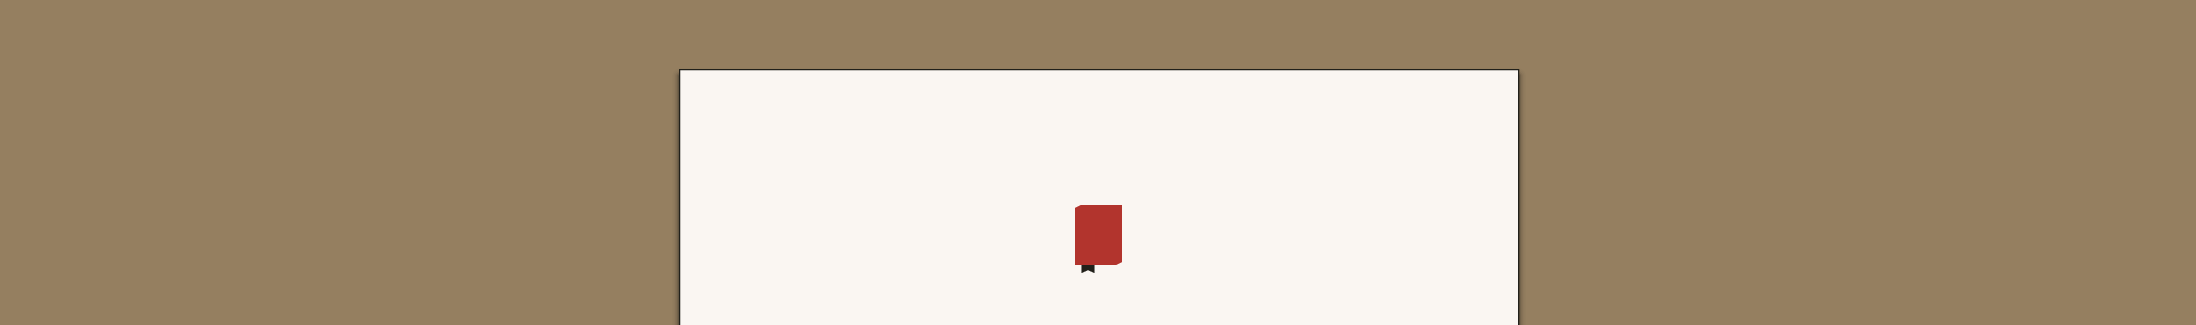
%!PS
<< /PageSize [2196 325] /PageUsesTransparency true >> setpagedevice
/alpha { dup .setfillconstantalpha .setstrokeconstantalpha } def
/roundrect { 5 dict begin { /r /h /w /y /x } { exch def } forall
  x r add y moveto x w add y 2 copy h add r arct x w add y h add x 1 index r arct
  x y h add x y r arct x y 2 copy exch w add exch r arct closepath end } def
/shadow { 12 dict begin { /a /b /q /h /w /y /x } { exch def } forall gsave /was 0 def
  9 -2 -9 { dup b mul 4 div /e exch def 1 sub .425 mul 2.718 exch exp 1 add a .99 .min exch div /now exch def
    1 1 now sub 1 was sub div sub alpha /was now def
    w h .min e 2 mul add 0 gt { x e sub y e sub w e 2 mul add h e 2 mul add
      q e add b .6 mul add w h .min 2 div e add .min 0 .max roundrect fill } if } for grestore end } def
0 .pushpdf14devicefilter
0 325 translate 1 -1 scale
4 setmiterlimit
0.584 0.498 0.376 setrgbcolor
0 0 2196 325 rectfill
0.129 0.125 0.102 setrgbcolor
679 75 840 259 0 3 1 shadow
0.98 0.965 0.949 setrgbcolor
newpath 679.5 69.5 moveto 1518.5 69.5 lineto 1518.5 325.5 lineto 679.5 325.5 lineto closepath gsave fill grestore
0.129 0.125 0.102 setrgbcolor
stroke
newpath 1081.5 260 moveto 1081.5 273 lineto 1088 270 lineto 1094.5 273 lineto 1094.5 260 lineto closepath fill
0.698 0.204 0.176 setrgbcolor
newpath 1075 208 moveto 1081 205 lineto 1122 205 lineto 1122 262 lineto 1116 265 lineto 1075 265 lineto closepath fill
.poppdf14devicefilter showpage
